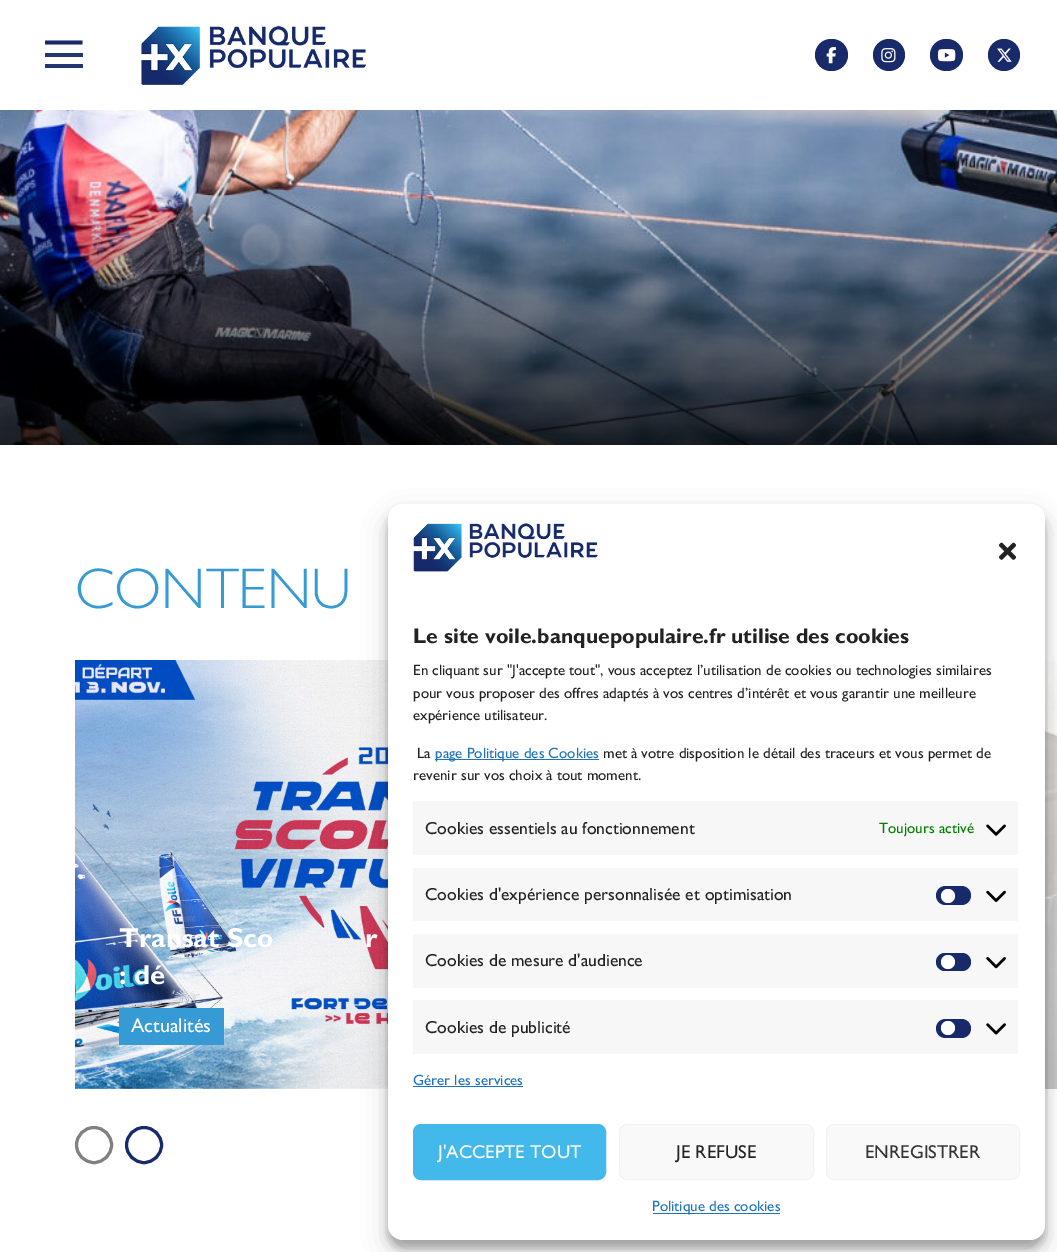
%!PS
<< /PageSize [1057 1252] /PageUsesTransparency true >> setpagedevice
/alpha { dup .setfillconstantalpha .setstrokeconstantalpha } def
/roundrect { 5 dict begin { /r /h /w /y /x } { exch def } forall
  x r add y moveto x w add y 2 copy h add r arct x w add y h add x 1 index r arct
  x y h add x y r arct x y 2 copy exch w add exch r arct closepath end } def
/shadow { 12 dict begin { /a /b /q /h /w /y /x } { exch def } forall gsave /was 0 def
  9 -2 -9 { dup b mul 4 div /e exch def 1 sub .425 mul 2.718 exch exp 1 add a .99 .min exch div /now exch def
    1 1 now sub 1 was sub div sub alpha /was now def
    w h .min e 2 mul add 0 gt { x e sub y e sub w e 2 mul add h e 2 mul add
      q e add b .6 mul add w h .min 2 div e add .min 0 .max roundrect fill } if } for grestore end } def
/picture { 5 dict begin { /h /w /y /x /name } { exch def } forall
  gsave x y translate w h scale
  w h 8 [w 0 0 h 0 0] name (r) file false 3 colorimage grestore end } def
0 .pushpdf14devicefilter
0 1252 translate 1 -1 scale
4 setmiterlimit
1 setgray
0 0 1057 1252 rectfill
0.098 0.165 0.42 setrgbcolor
3.8 setlinewidth
newpath 82.5 42.5 moveto 45 42.5 lineto stroke
0.145 0.208 0.447 setrgbcolor
45 53 38 4 rectfill
45 64 38 4 rectfill
(img1.rgb) 141 25 226 60 picture
0.098 0.165 0.42 setrgbcolor
815 39 33 32 16 roundrect fill
(img2.rgb) 826 47 10 17 picture
newpath 889 55 16 0 360 arc closepath fill
(img3.rgb) 881 48 15 15 picture
930 39 33 32 16 roundrect fill
(img4.rgb) 937 49 19 13 picture
newpath 1004 55 16 0 360 arc closepath fill
(img5.rgb) 997 48 15 14 picture
(img6.rgb) 0 110 1057 335 picture
/GillSans-Light [57.5 0 0 -57.5 0 0] selectfont
0.212 0.604 0.831 setrgbcolor
75 608 moveto (CONTENU) show
(img7.rgb) 75 660 313 429 picture
/GillSans-Bold [27.5 0 0 -27.5 0 0] selectfont
1 setgray
119 947 moveto (Transat Sco) show
365 947 moveto (r) show
119 984 moveto (: dé) show
0.212 0.604 0.831 setrgbcolor
119 1008 105 37 rectfill
/GillSans-Regular [20 0 0 -20 0 0] selectfont
1 setgray
131 1032 moveto (Actualités) show
(img8.rgb) 1045 661 12 428 picture
0.502 setgray
3 setlinewidth
newpath 94 1145 17.5 0 360 arc closepath stroke
0.098 0.165 0.42 setrgbcolor
newpath 144 1145 17.5 0 360 arc closepath stroke
0 setgray
388 511 657 737 15 4 0.23 shadow
388 516 657 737 15 12.5 0.19 shadow
1 setgray
388 504 657 736 15 roundrect fill
(img9.rgb) 413 523 185 49 picture
(img10.rgb) 998 542 19 18 picture
/GillSans-Bold [21.25 0 0 -21.25 0 0] selectfont
0.133 setgray
413 643 moveto (Le site voile.banquepopulaire.fr utilise des cookies) show
/GillSans-Regular [15 0 0 -15 0 0] selectfont
413 675 moveto (En cliquant sur "J'accepte tout", vous acceptez l’utilisation de cookies ou technologies similaires) show
413 698 moveto (pour vous proposer des offres adaptés à vos centres d’intérêt et vous garantir une meilleure) show
413 720 moveto (expérience utilisateur.) show
417 758 moveto (La) show
0.118 0.451 0.745 setrgbcolor
435 759 164 1 rectfill
435 758 moveto (page Politique des Cookies) show
0.133 setgray
603 758 moveto (met à votre disposition le détail des traceurs et vous permet de) show
413 780 moveto (revenir sur vos choix à tout moment.) show
0.969 setgray
413 801 605 54 rectfill
/GillSans-Regular [17.5 0 0 -17.5 0 0] selectfont
0.133 setgray
425 834 moveto (Cookies essentiels au fonctionnement) show
/GillSans-Regular [15 0 0 -15 0 0] selectfont
0 0.502 0 setrgbcolor
879 833 moveto (Toujours activé) show
(img11.rgb) 986 824 20 12 picture
0.969 setgray
413 868 605 53 rectfill
/GillSans-Regular [17.5 0 0 -17.5 0 0] selectfont
0.133 setgray
425 900 moveto (Cookies d'expérience personnalisée et optimisation) show
0.098 0.165 0.42 setrgbcolor
936 886 35 19 9.5 roundrect fill
1 setgray
newpath 948 896 7 0 360 arc closepath fill
(img12.rgb) 986 890 20 12 picture
0.969 setgray
413 934 605 54 rectfill
0.133 setgray
425 966 moveto (Cookies de mesure d'audience) show
0.098 0.165 0.42 setrgbcolor
936 953 35 18 9 roundrect fill
1 setgray
newpath 948 962 7 0 360 arc closepath fill
(img13.rgb) 986 957 20 12 picture
0.969 setgray
413 1000 605 54 rectfill
0.133 setgray
425 1033 moveto (Cookies de publicité) show
0.098 0.165 0.42 setrgbcolor
936 1019 35 19 9.5 roundrect fill
1 setgray
newpath 948 1028 7 0 360 arc closepath fill
(img14.rgb) 986 1023 20 12 picture
/GillSans-Regular [15 0 0 -15 0 0] selectfont
0.118 0.451 0.745 setrgbcolor
413 1085 moveto (Gérer les services) show
413 1086 110 1 rectfill
0.259 0.722 0.922 setrgbcolor
413.5 1124.5 192 55 7.5 roundrect gsave fill grestore
1 setlinewidth
stroke
/GillSans-Regular [18.75 0 0 -18.75 0 0] selectfont
1 setgray
438 1158 moveto (J'ACCEPTE TOUT) show
0.976 setgray
619.5 1124.5 194 55 7.5 roundrect gsave fill grestore
0.949 setgray
stroke
0.133 setgray
676 1158 moveto (JE REFUSE) show
0.976 setgray
826.5 1124.5 193 55 7.5 roundrect gsave fill grestore
0.949 setgray
stroke
0.2 setgray
865 1158 moveto (ENREGISTRER) show
0.118 0.451 0.745 setrgbcolor
653 1213 127 1 rectfill
/GillSans-Regular [15 0 0 -15 0 0] selectfont
652 1211 moveto (Politique des cookies) show
.poppdf14devicefilter showpage
